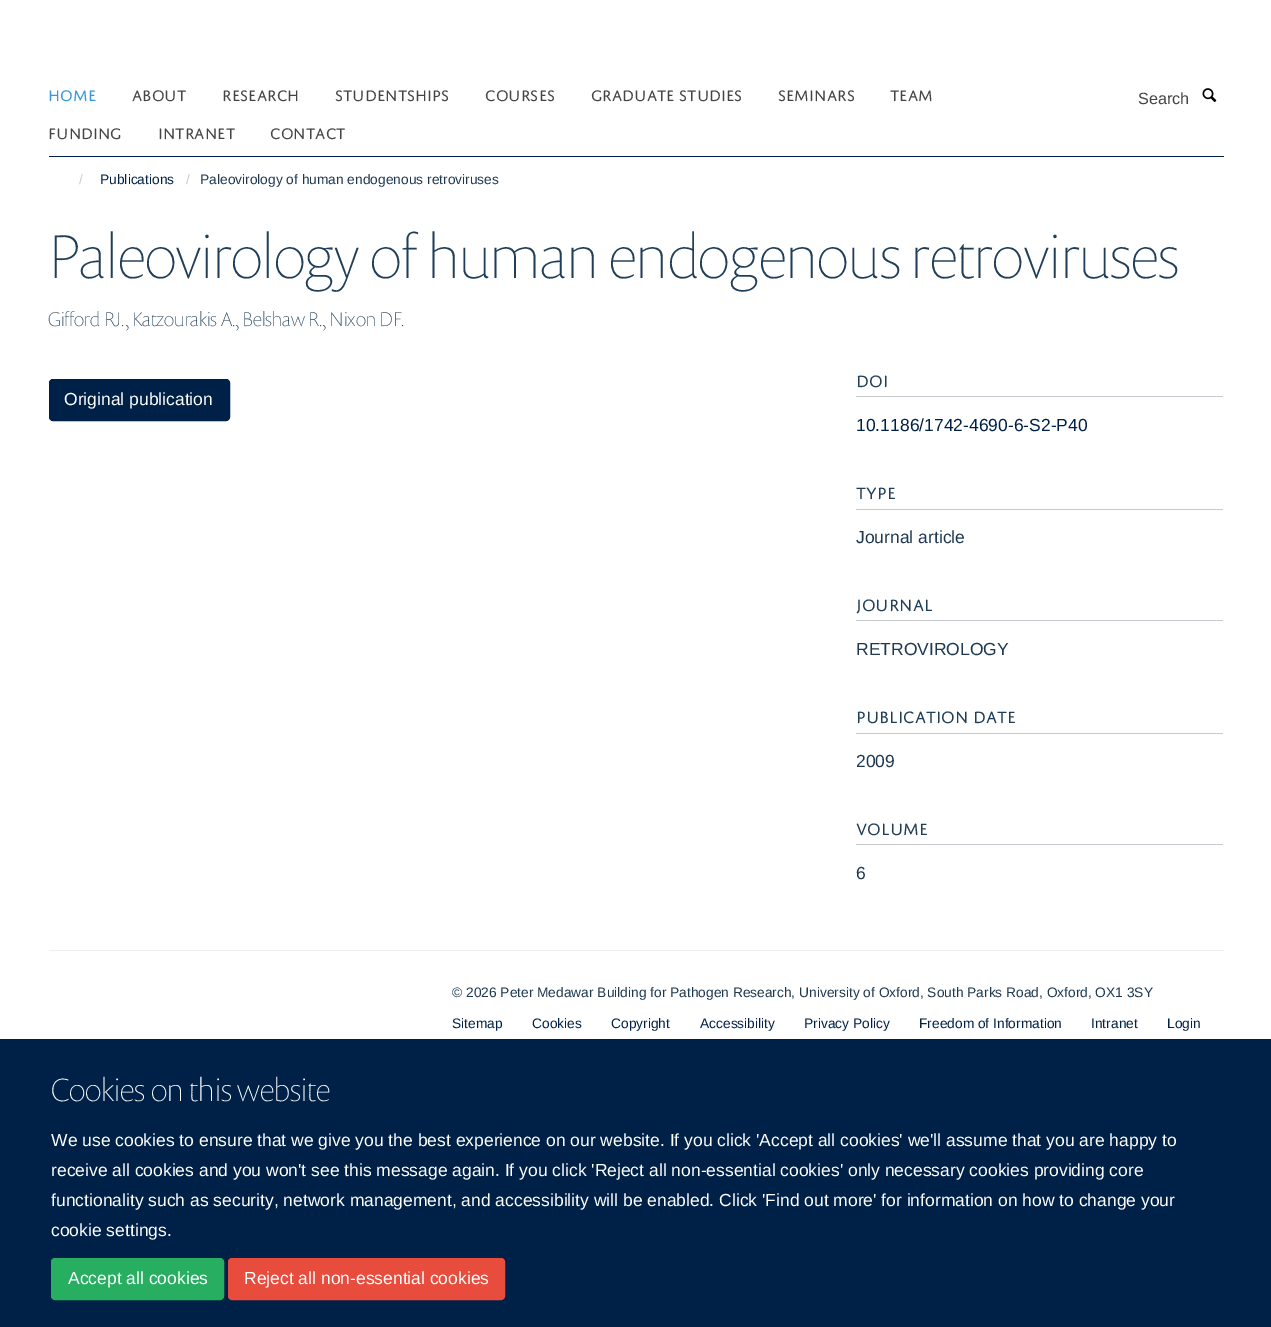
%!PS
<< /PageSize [1271 1327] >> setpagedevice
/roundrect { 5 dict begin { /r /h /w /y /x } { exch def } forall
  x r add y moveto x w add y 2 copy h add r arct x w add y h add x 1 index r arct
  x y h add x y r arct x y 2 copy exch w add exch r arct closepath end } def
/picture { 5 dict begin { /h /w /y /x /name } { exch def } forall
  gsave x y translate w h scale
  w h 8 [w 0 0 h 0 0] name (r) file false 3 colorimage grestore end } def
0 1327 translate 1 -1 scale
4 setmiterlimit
1 setgray
0 0 1271 1327 rectfill
0 0.129 0.278 setrgbcolor
49 156 1175 1 rectfill
/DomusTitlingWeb-Regular [16.25 0 0 -16.25 0 0] selectfont
0.204 0.596 0.859 setrgbcolor
48 101 moveto (HOME) show
0.267 setgray
132 101 moveto (ABOUT) show
222 101 moveto (RESEARCH) show
335 101 moveto (STUDENTSHIPS) show
485 101 moveto (COURSES) show
591 101 moveto (GRADUATE STUDIES) show
778 101 moveto (SEMINARS) show
890 101 moveto (TEAM) show
48 139 moveto (FUNDING) show
158 139 moveto (INTRANET) show
270 139 moveto (CONTACT) show
/LiberationSans-Regular [16.25 0 0 -16.25 0 0] selectfont
1138 104 moveto (Search) show
(img1.rgb) 1202 88 15 14 picture
/LiberationSans-Regular [13.75 0 0 -13.75 0 0] selectfont
0.8 setgray
79 184 moveto (/) show
0 0.129 0.278 setrgbcolor
100 184 moveto (Publications) show
0.8 setgray
186 184 moveto (/) show
0.114 0.22 0.314 setrgbcolor
200 184 moveto (Paleovirology of human endogenous retroviruses) show
/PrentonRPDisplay-Thin [62.5 0 0 -62.5 0 0] selectfont
0.125 0.243 0.345 setrgbcolor
48 278 moveto (Paleovirology of human endogenous retroviruses) show
/PrentonRPDisplay-Thin [20 0 0 -20 0 0] selectfont
48 326 moveto (Gifford RJ., Katzourakis A., Belshaw R., Nixon DF.) show
0 0.129 0.278 setrgbcolor
49.5 379.5 180 41 3.5 roundrect gsave fill grestore
stroke
/LiberationSans-Regular [17.5 0 0 -17.5 0 0] selectfont
1 setgray
64 405 moveto (Original publication) show
0.776 0.792 0.812 setrgbcolor
856 396 367 1 rectfill
/DomusTitlingWeb-Regular [17.5 0 0 -17.5 0 0] selectfont
0.125 0.243 0.345 setrgbcolor
856 387 moveto (DOI) show
/LiberationSans-Regular [17.5 0 0 -17.5 0 0] selectfont
0 0.129 0.278 setrgbcolor
856 431 moveto (10.1186/1742-4690-6-S2-P40) show
0.776 0.792 0.812 setrgbcolor
856 509 367 1 rectfill
/DomusTitlingWeb-Regular [17.5 0 0 -17.5 0 0] selectfont
0.125 0.243 0.345 setrgbcolor
856 499 moveto (TYPE) show
/LiberationSans-Regular [17.5 0 0 -17.5 0 0] selectfont
0.114 0.22 0.314 setrgbcolor
856 543 moveto (Journal article) show
0.776 0.792 0.812 setrgbcolor
856 620 367 1 rectfill
/DomusTitlingWeb-Regular [17.5 0 0 -17.5 0 0] selectfont
0.125 0.243 0.345 setrgbcolor
856 611 moveto (JOURNAL) show
/LiberationSans-Regular [17.5 0 0 -17.5 0 0] selectfont
0.114 0.22 0.314 setrgbcolor
856 655 moveto (RETROVIROLOGY) show
0.776 0.792 0.812 setrgbcolor
856 733 367 1 rectfill
/DomusTitlingWeb-Regular [17.5 0 0 -17.5 0 0] selectfont
0.125 0.243 0.345 setrgbcolor
856 723 moveto (PUBLICATION DATE) show
/LiberationSans-Regular [17.5 0 0 -17.5 0 0] selectfont
0.114 0.22 0.314 setrgbcolor
856 767 moveto (2009) show
0.776 0.792 0.812 setrgbcolor
856 844 367 1 rectfill
/DomusTitlingWeb-Regular [17.5 0 0 -17.5 0 0] selectfont
0.125 0.243 0.345 setrgbcolor
856 835 moveto (VOLUME) show
/LiberationSans-Regular [17.5 0 0 -17.5 0 0] selectfont
0.114 0.22 0.314 setrgbcolor
856 879 moveto (6) show
0.933 setgray
49 950 1175 1 rectfill
/LiberationSans-Regular [13.75 0 0 -13.75 0 0] selectfont
0.114 0.22 0.314 setrgbcolor
452 997 moveto (© 2026 Peter Medawar Building for Pathogen Research, University of Oxford, South Parks Road, Oxford, OX1 3SY) show
0 0.129 0.278 setrgbcolor
452 1028 moveto (Sitemap) show
532 1028 moveto (Cookies) show
611 1028 moveto (Copyright) show
700 1028 moveto (Accessibility) show
804 1028 moveto (Privacy Policy) show
919 1028 moveto (Freedom of Information) show
1091 1028 moveto (Intranet) show
1167 1028 moveto (Login) show
0 1039 1271 288 rectfill
/PrentonRPDisplay-Thin [32.5 0 0 -32.5 0 0] selectfont
1 setgray
51 1101 moveto (Cookies on this website) show
/LiberationSans-Regular [17.5 0 0 -17.5 0 0] selectfont
51 1146 moveto (We use cookies to ensure that we give you the best experience on our website. If you click 'Accept all cookies' we'll assume that you are happy to) show
51 1176 moveto (receive all cookies and you won't see this message again. If you click 'Reject all non-essential cookies' only necessary cookies providing core) show
51 1206 moveto (functionality such as security, network management, and accessibility will be enabled. Click 'Find out more' for information on how to change your) show
51 1236 moveto (cookie settings.) show
0.153 0.682 0.376 setrgbcolor
51.5 1258.5 172 41 3.5 roundrect gsave fill grestore
stroke
1 setgray
68 1284 moveto (Accept all cookies) show
0.906 0.298 0.235 setrgbcolor
228.5 1258.5 276 41 3.5 roundrect gsave fill grestore
stroke
1 setgray
244 1284 moveto (Reject all non-essential cookies) show
showpage
